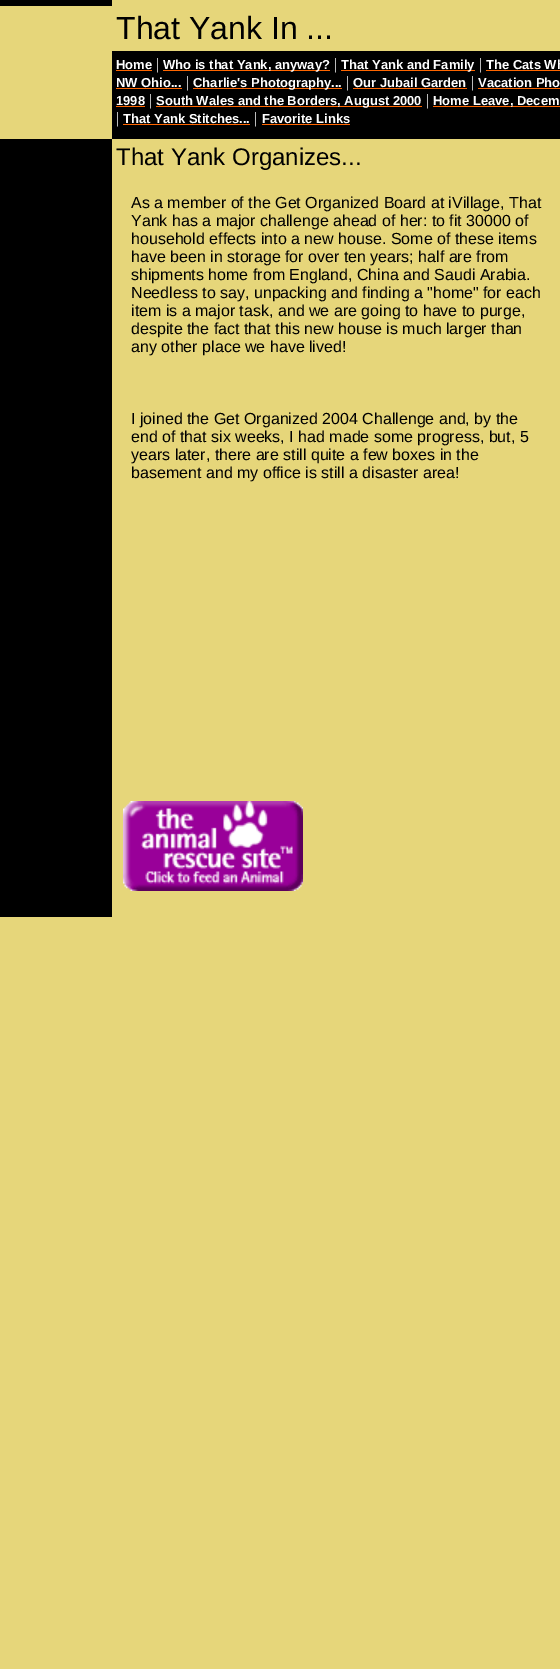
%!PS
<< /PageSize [560 1669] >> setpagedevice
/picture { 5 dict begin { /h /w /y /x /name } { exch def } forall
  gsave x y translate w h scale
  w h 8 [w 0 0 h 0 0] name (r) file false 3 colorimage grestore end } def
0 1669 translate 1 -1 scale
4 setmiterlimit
0.902 0.839 0.478 setrgbcolor
0 0 560 1669 rectfill
0 setgray
0 0 112 6 rectfill
/LiberationSans-Regular [32 0 0 -32 0 0] selectfont
116 39 moveto (That Yank In ...) show
112 51 448 88 rectfill
/LiberationSans-Bold [13 0 0 -13 0 0] selectfont
1 setgray
116 69 moveto (Home) show
1 0.4 0 setrgbcolor
116 70 36 1 rectfill
/LiberationSerif-Regular [16 0 0 -16 0 0] selectfont
1 setgray
156 69 moveto (|) show
1 0.4 0 setrgbcolor
163 70 167 1 rectfill
/LiberationSans-Bold [13 0 0 -13 0 0] selectfont
1 setgray
163 69 moveto (Who is that Yank, anyway?) show
/LiberationSerif-Regular [16 0 0 -16 0 0] selectfont
334 69 moveto (|) show
1 0.4 0 setrgbcolor
341 70 134 1 rectfill
/LiberationSans-Bold [13 0 0 -13 0 0] selectfont
1 setgray
341 69 moveto (That Yank and Family) show
/LiberationSerif-Regular [16 0 0 -16 0 0] selectfont
479 69 moveto (|) show
/LiberationSans-Bold [13 0 0 -13 0 0] selectfont
486 69 moveto (The Cats Wh) show
1 0.4 0 setrgbcolor
486 70 74 1 rectfill
1 setgray
116 87 moveto (NW Ohio...) show
1 0.4 0 setrgbcolor
116 88 66 1 rectfill
/LiberationSerif-Regular [16 0 0 -16 0 0] selectfont
1 setgray
186 87 moveto (|) show
1 0.4 0 setrgbcolor
193 88 149 1 rectfill
/LiberationSans-Bold [13 0 0 -13 0 0] selectfont
1 setgray
193 87 moveto (Charlie's Photography...) show
/LiberationSerif-Regular [16 0 0 -16 0 0] selectfont
346 87 moveto (|) show
/LiberationSans-Bold [13 0 0 -13 0 0] selectfont
353 87 moveto (Our Jubail Garden) show
1 0.4 0 setrgbcolor
353 88 114 1 rectfill
/LiberationSerif-Regular [16 0 0 -16 0 0] selectfont
1 setgray
471 87 moveto (|) show
/LiberationSans-Bold [13 0 0 -13 0 0] selectfont
478 87 moveto (Vacation Pho) show
1 0.4 0 setrgbcolor
478 88 82 1 rectfill
1 setgray
116 105 moveto (1998) show
1 0.4 0 setrgbcolor
116 106 29 1 rectfill
/LiberationSerif-Regular [16 0 0 -16 0 0] selectfont
1 setgray
149 105 moveto (|) show
1 0.4 0 setrgbcolor
156 106 266 1 rectfill
/LiberationSans-Bold [13 0 0 -13 0 0] selectfont
1 setgray
156 105 moveto (South Wales and the Borders, August 2000) show
/LiberationSerif-Regular [16 0 0 -16 0 0] selectfont
426 105 moveto (|) show
1 0.4 0 setrgbcolor
433 106 127 1 rectfill
/LiberationSans-Bold [13 0 0 -13 0 0] selectfont
1 setgray
433 105 moveto (Home Leave, Decem) show
/LiberationSerif-Regular [16 0 0 -16 0 0] selectfont
116 123 moveto (|) show
/LiberationSans-Bold [13 0 0 -13 0 0] selectfont
123 123 moveto (That Yank Stitches...) show
1 0.4 0 setrgbcolor
123 124 127 1 rectfill
/LiberationSerif-Regular [16 0 0 -16 0 0] selectfont
1 setgray
254 123 moveto (|) show
/LiberationSans-Bold [13 0 0 -13 0 0] selectfont
262 123 moveto (Favorite Links) show
1 0.4 0 setrgbcolor
262 124 88 1 rectfill
0 setgray
0 139 112 778 rectfill
/LiberationSans-Regular [24 0 0 -24 0 0] selectfont
116 165 moveto (That Yank Organizes...) show
/LiberationSans-Regular [16 0 0 -16 0 0] selectfont
131 208 moveto (As a member of the Get Organized Board at iVillage, That) show
131 226 moveto (Yank has a major challenge ahead of her: to fit 30000 of) show
131 244 moveto (household effects into a new house. Some of these items) show
131 262 moveto (have been in storage for over ten years; half are from) show
131 280 moveto (shipments home from England, China and Saudi Arabia.) show
131 298 moveto (Needless to say, unpacking and finding a "home" for each) show
131 316 moveto (item is a major task, and we are going to have to purge,) show
131 334 moveto (despite the fact that this new house is much larger than) show
131 352 moveto (any other place we have lived!) show
131 424 moveto (I joined the Get Organized 2004 Challenge and, by the) show
131 442 moveto (end of that six weeks, I had made some progress, but, 5) show
131 460 moveto (years later, there are still quite a few boxes in the) show
131 478 moveto (basement and my office is still a disaster area!) show
(img1.rgb) 123 801 180 90 picture
showpage
